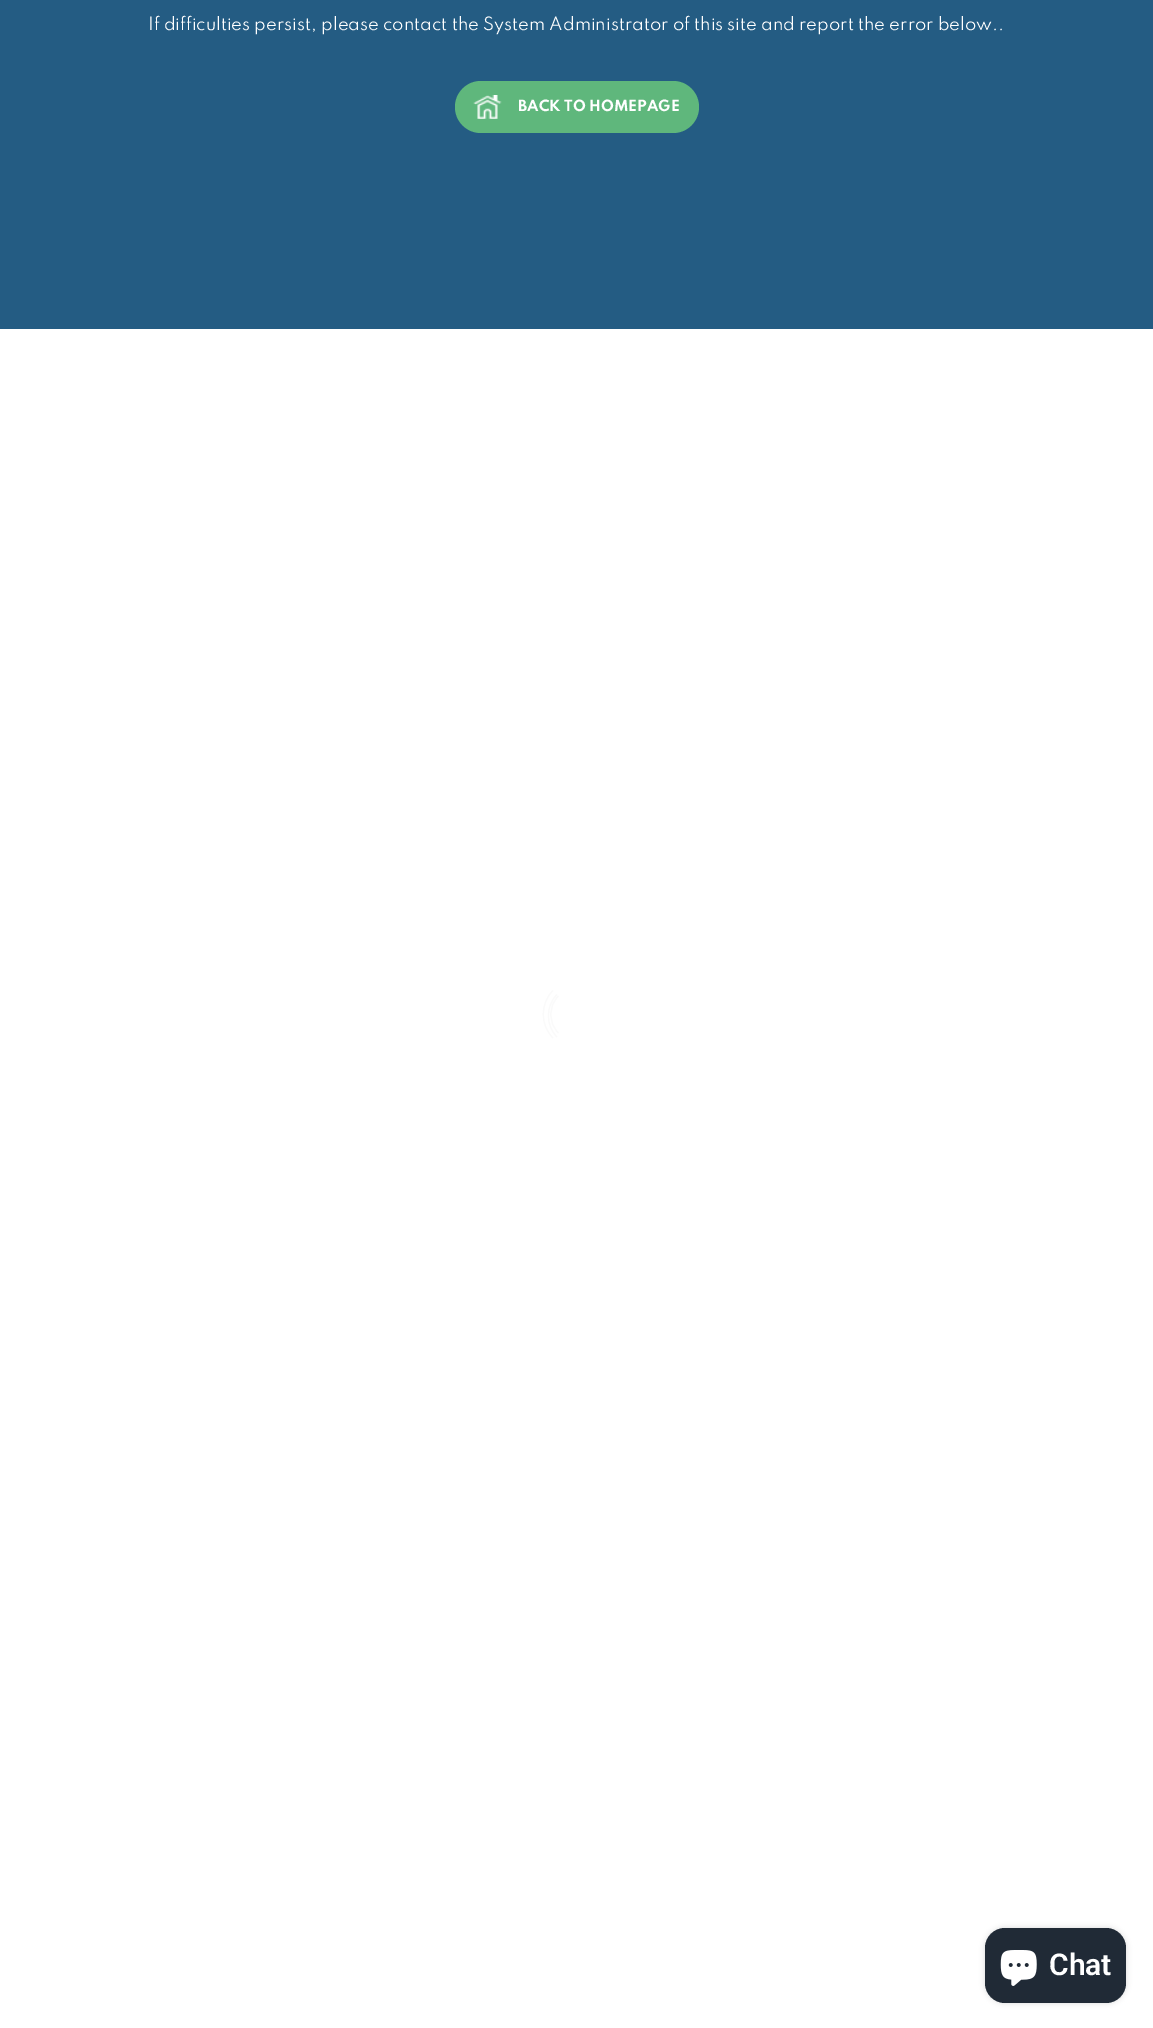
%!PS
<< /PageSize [1153 2028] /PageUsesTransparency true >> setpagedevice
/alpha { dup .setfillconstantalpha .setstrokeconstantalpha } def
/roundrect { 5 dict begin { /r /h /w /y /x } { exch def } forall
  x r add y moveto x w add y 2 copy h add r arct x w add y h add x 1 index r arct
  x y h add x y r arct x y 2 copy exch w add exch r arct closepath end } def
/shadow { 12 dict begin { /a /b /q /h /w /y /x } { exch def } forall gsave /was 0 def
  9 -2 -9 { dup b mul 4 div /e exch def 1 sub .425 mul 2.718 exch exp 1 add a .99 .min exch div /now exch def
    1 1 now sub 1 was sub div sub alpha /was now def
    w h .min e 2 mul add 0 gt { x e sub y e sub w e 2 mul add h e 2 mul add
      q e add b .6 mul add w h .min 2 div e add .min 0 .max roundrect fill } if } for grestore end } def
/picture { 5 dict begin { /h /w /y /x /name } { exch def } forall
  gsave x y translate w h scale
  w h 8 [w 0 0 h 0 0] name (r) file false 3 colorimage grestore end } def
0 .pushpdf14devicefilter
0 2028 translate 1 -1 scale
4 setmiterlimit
1 setgray
0 0 1153 2028 rectfill
0.141 0.361 0.514 setrgbcolor
0 0 1153 329 rectfill
/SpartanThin-Regular [16.25 0 0 -16.25 0 0] selectfont
1 setgray
148 30 moveto (If difficulties persist, please contact the System Administrator of this site and report the error below..) show
0.373 0.718 0.486 setrgbcolor
455 81 244 52 26 roundrect fill
(img1.rgb) 473 95 29 24 picture
/SpartanThin-Bold [13.75 0 0 -13.75 0 0] selectfont
1 setgray
518 111 moveto (BACK TO HOMEPAGE) show
0.98 setgray
1.2 setlinewidth
newpath 557 1037 moveto 545.5 1025.5 545.5 1006 557 994.5 curveto 558.5 1033 moveto 548 1023 548 1006 558.5 996 curveto 553 1038 moveto 540 1025 540 1003.5 553 990.5 curveto stroke
0 setgray
985 1928 141 75 20 3 0.15 shadow
0.125 0.165 0.212 setrgbcolor
985 1928 141 75 20 roundrect fill
(img2.rgb) 1000 1950 37 36 picture
/Roboto-SemiBold [30 0 0 -30 0 0] selectfont
1 setgray
1049 1975 moveto (Chat) show
.poppdf14devicefilter showpage
